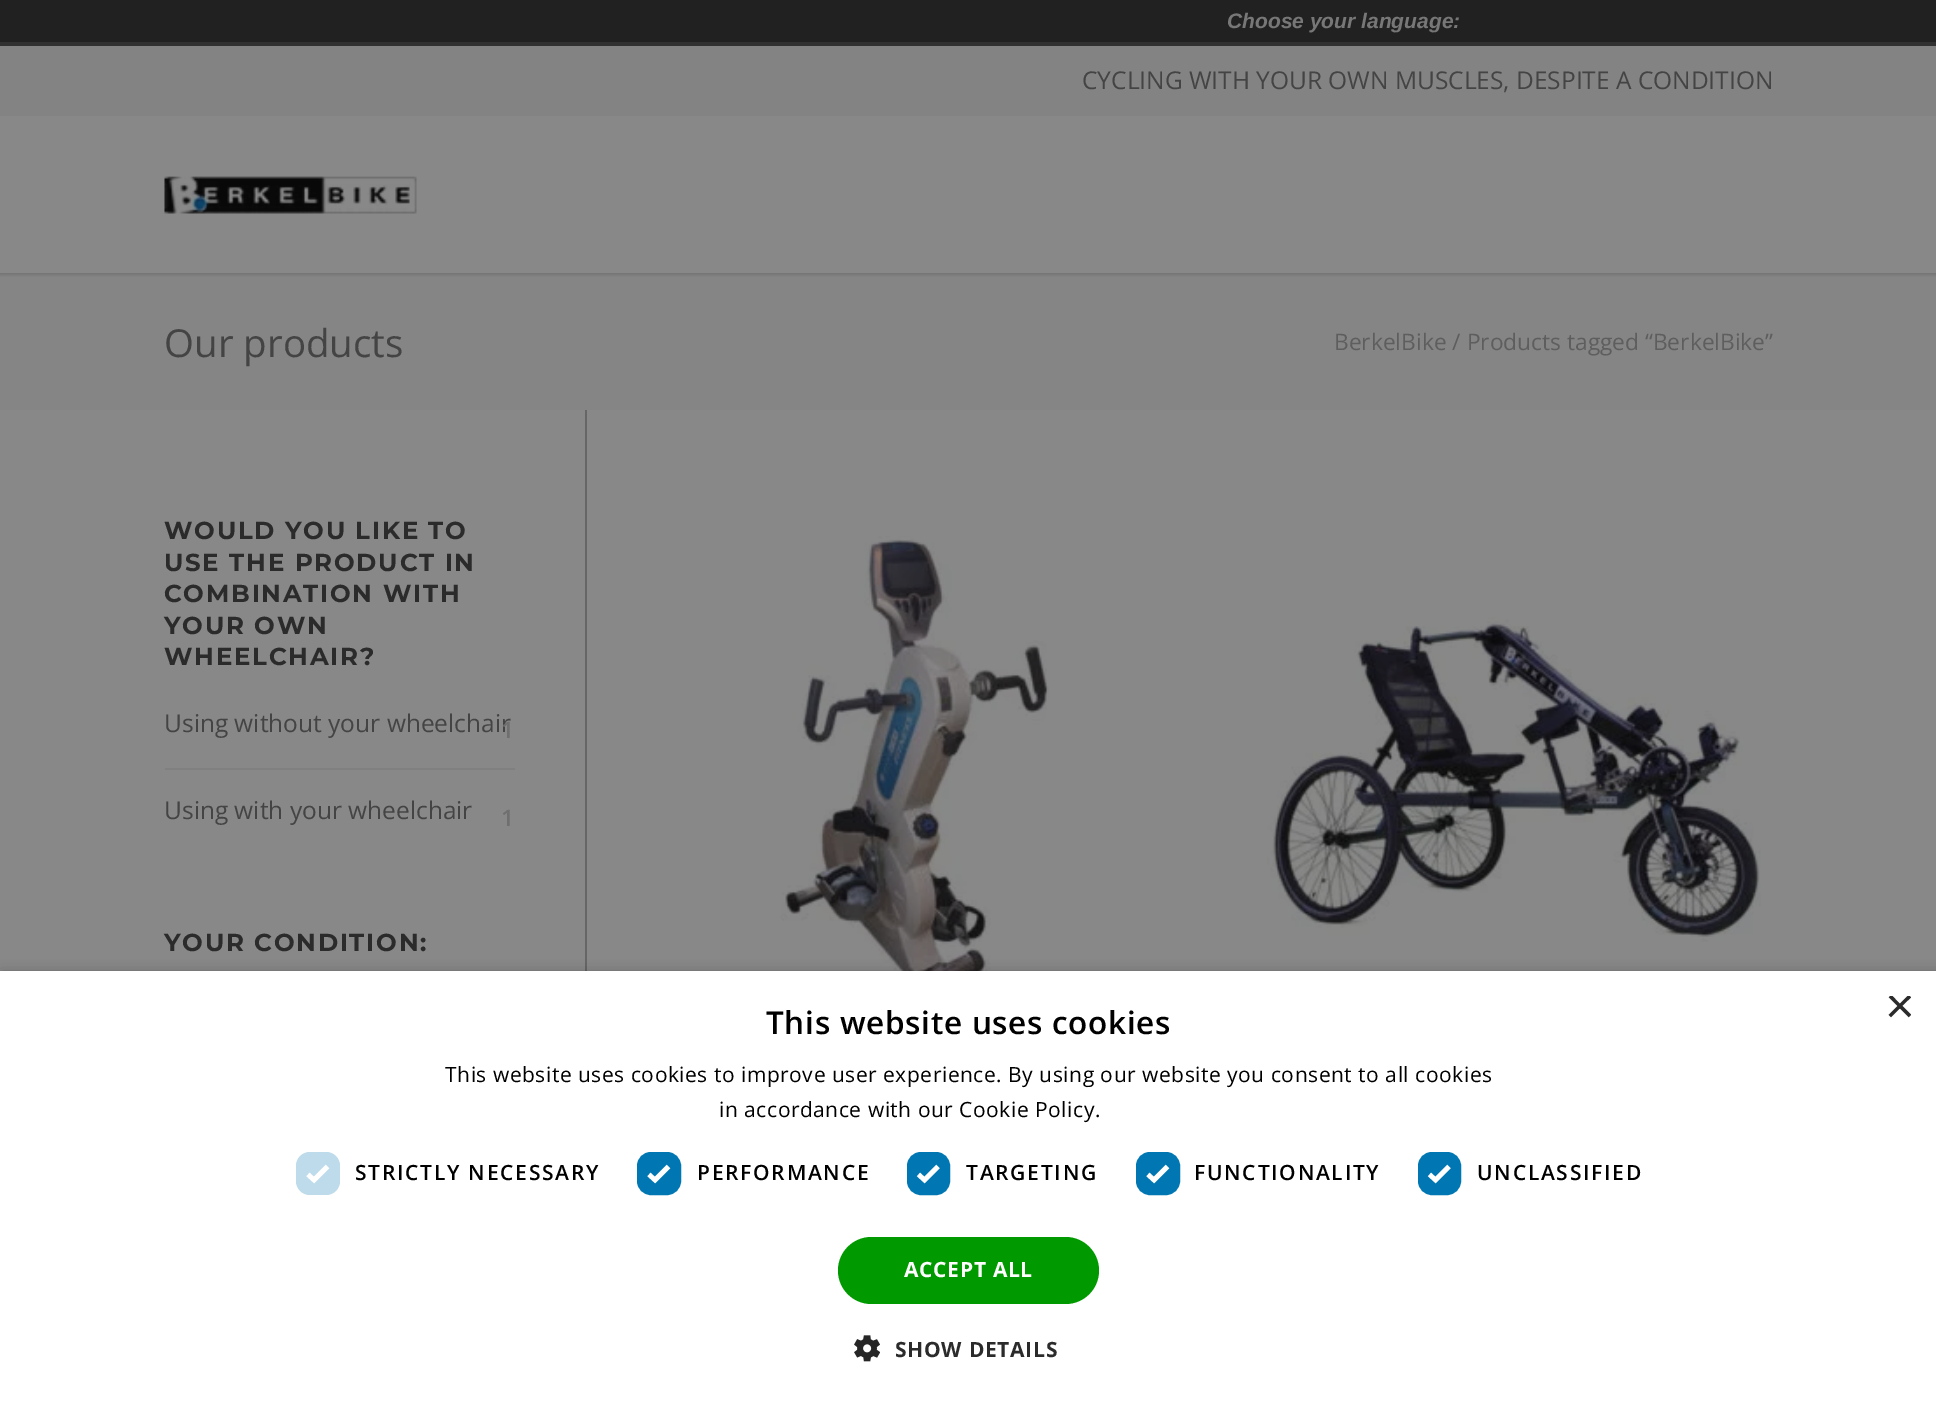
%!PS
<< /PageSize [1936 1411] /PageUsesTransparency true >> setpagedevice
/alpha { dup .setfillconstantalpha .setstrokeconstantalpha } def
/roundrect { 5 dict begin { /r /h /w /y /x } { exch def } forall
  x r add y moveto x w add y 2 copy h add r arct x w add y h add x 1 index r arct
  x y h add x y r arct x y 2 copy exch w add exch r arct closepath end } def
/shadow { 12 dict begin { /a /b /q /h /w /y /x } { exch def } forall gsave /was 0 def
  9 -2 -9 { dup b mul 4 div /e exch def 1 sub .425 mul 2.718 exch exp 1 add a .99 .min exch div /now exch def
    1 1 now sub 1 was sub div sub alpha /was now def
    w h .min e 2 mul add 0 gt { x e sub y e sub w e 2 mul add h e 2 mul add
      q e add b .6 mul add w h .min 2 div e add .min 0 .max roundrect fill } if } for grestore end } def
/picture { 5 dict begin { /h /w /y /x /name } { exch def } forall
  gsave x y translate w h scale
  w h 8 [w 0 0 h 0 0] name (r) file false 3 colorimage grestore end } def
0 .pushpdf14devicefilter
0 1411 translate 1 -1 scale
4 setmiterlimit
0.533 setgray
0 0 1936 1411 rectfill
0.129 setgray
0 0 1936 42 rectfill
0.192 setgray
0 42 1936 4 rectfill
/LiberationSans-BoldItalic [21 0 0 -21 0 0] selectfont
0.467 setgray
1227 28 moveto (Choose your language:) show
0.522 setgray
0 273 1936 137 rectfill
gsave
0 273 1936 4 rectclip
0.035 setgray
-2 114 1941 161 0 2 0.16 shadow
grestore
0.514 setgray
0 46 1936 70 rectfill
/OpenSans-Regular [24.5 0 0 -24.5 0 0] selectfont
0.267 setgray
1082 89 moveto (CYCLING WITH YOUR OWN MUSCLES, DESPITE A CONDITION) show
(img1.rgb) 164 176 253 38 picture
/OpenSans-Regular [38.5 0 0 -38.5 0 0] selectfont
164 357 moveto (Our products) show
/OpenSans-Regular [22.75 0 0 -22.75 0 0] selectfont
0.369 setgray
1334 350 moveto (BerkelBike / Products tagged “BerkelBike”) show
0.4 setgray
585 410 2 561 rectfill
/Montserrat-Bold [24.5 0 0 -24.5 0 0] selectfont
0.169 setgray
164 539 moveto 1.75 0 (WOULD YOU LIKE TO) ashow
164 571 moveto 1.75 0 (USE THE PRODUCT IN) ashow
164 602 moveto 1.75 0 (COMBINATION WITH) ashow
164 634 moveto 1.75 0 (YOUR OWN) ashow
164 665 moveto 1.75 0 (WHEELCHAIR?) ashow
0.502 setgray
165 768 350 2 rectfill
/OpenSans-Regular [24.5 0 0 -24.5 0 0] selectfont
0.267 setgray
164 732 moveto (Using without your wheelchair) show
/OpenSans-SemiBold [22.75 0 0 -22.75 0 0] selectfont
0.435 setgray
501 738 moveto (1) show
/OpenSans-Regular [24.5 0 0 -24.5 0 0] selectfont
0.267 setgray
164 819 moveto (Using with your wheelchair) show
/OpenSans-SemiBold [22.75 0 0 -22.75 0 0] selectfont
0.435 setgray
501 826 moveto (1) show
/Montserrat-Bold [24.5 0 0 -24.5 0 0] selectfont
0.169 setgray
164 951 moveto 1.75 0 (YOUR CONDITION:) ashow
(img2.rgb) 780 536 269 435 picture
(img3.rgb) 1267 617 494 325 picture
0 setgray
2 975 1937 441 0 7 0.35 shadow
1 setgray
0 971 1936 440 rectfill
gsave
1885 996 26 26 rectclip
/LiberationSans-Regular [51 0 0 -51 0 0] selectfont
0.169 setgray
1885 1023 moveto (×) show
grestore
/OpenSans-SemiBold [31.5 0 0 -31.5 0 0] selectfont
0 setgray
766 1034 moveto 0.7 0 (This website uses cookies) ashow
/OpenSans-Regular [21 0 0 -21 0 0] selectfont
445 1082 moveto 0.53 0 (This website uses cookies to improve user experience. By using our website you consent to all cookies) ashow
719 1117 moveto 0.53 0 (in accordance with our Cookie Policy.) ashow
0.741 0.859 0.922 setrgbcolor
296 1152 44 43 14 roundrect fill
1 setgray
4.6 setlinewidth
newpath 308 1174.5 moveto 314 1180 lineto 327.5 1166.5 lineto stroke
/OpenSans-SemiBold [21 0 0 -21 0 0] selectfont
0 setgray
355 1180 moveto 1.75 0 (STRICTLY NECESSARY) ashow
0 0.463 0.698 setrgbcolor
639 1154 40 39 12 roundrect gsave fill grestore
4 setlinewidth
stroke
1 setgray
4.6 setlinewidth
newpath 649 1174.5 moveto 655 1180 lineto 668.5 1166.5 lineto stroke
0 setgray
697 1180 moveto 1.75 0 (PERFORMANCE) ashow
0 0.463 0.698 setrgbcolor
909 1154 39 39 12 roundrect gsave fill grestore
4 setlinewidth
stroke
1 setgray
4.6 setlinewidth
newpath 918.5 1174.5 moveto 924.5 1180 lineto 938 1166.5 lineto stroke
0 setgray
966 1180 moveto 1.75 0 (TARGETING) ashow
0 0.463 0.698 setrgbcolor
1138 1154 40 39 12 roundrect gsave fill grestore
4 setlinewidth
stroke
1 setgray
4.6 setlinewidth
newpath 1148 1174.5 moveto 1154 1180 lineto 1167.5 1166.5 lineto stroke
0 setgray
1194 1180 moveto 1.75 0 (FUNCTIONALITY) ashow
0 0.463 0.698 setrgbcolor
1420 1154 39 39 12 roundrect gsave fill grestore
4 setlinewidth
stroke
1 setgray
4.6 setlinewidth
newpath 1429.5 1174.5 moveto 1435.5 1180 lineto 1449 1166.5 lineto stroke
0 setgray
1477 1180 moveto 1.75 0 (UNCLASSIFIED) ashow
0 0.6 0 setrgbcolor
838 1237 261 67 33.5 roundrect fill
/OpenSans-Bold [21 0 0 -21 0 0] selectfont
1 setgray
904 1277 moveto 0.7 0 (ACCEPT ALL) ashow
(img4.rgb) 854 1335 26 27 picture
0.169 setgray
895 1357 moveto 0.7 0 (SHOW DETAILS) ashow
.poppdf14devicefilter showpage
